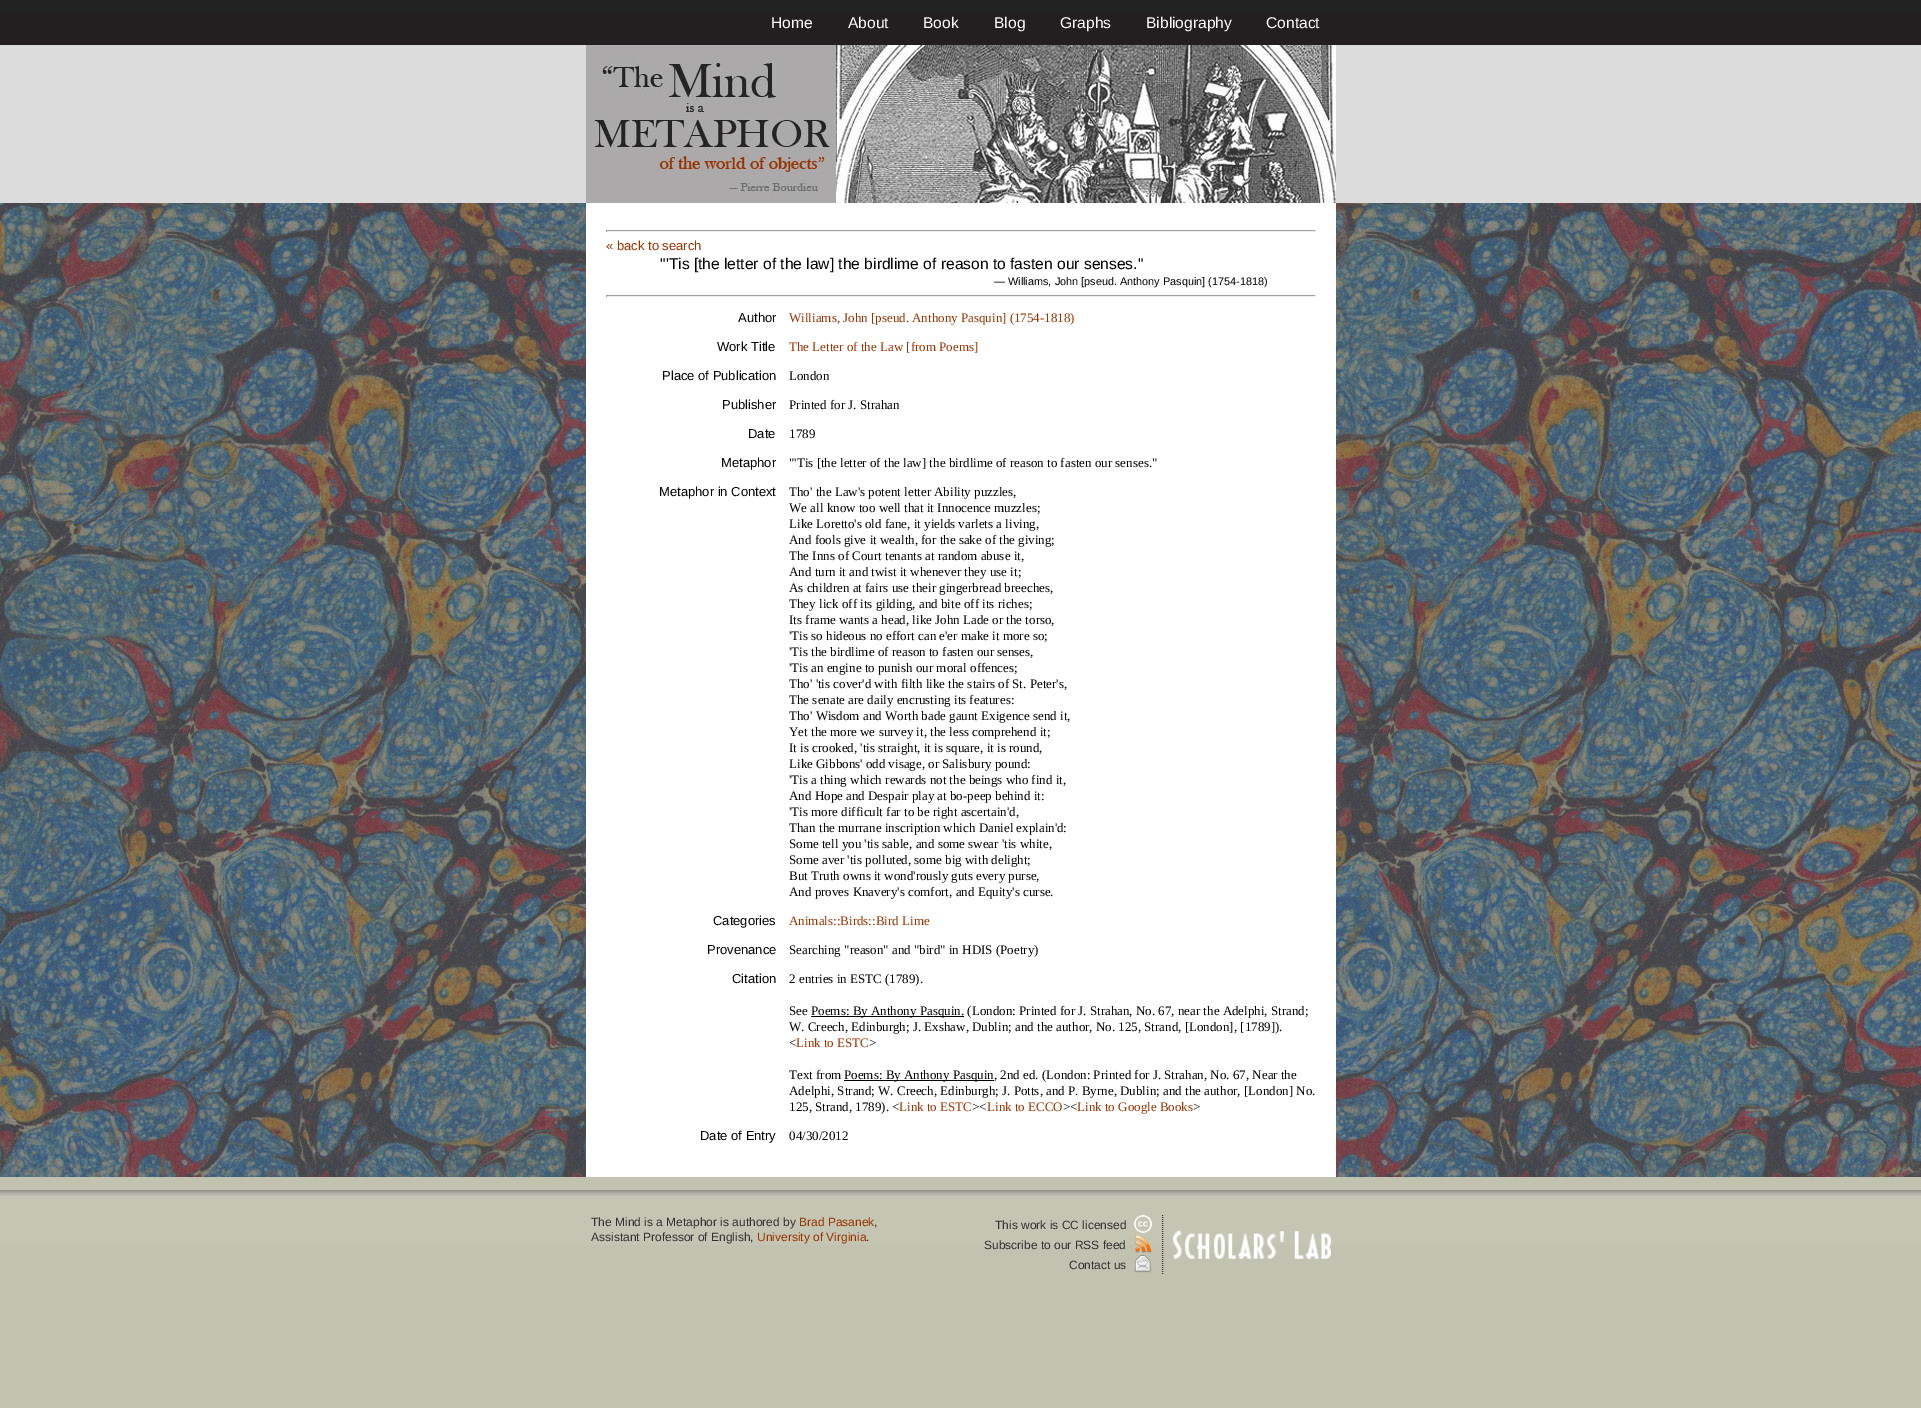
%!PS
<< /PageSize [1921 1408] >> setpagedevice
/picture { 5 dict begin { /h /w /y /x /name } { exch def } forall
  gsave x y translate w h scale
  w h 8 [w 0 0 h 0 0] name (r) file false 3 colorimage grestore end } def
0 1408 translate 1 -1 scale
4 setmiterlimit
0.757 0.761 0.69 setrgbcolor
0 0 1921 1408 rectfill
0.133 setgray
0 0 1921 13 rectfill
0.137 0.122 0.125 setrgbcolor
0 13 1921 32 rectfill
/LiberationSans-Regular [15.6 0 0 -15.6 0 0] selectfont
1 setgray
771 28 moveto (Home) show
848 28 moveto (About) show
923 28 moveto (Book) show
994 28 moveto (Blog) show
1060 28 moveto (Graphs) show
1146 28 moveto (Bibliography) show
1266 28 moveto (Contact) show
0.867 0.863 0.863 setrgbcolor
0 45 1921 158 rectfill
(img1.rgb) 586 45 750 158 picture
(img2.rgb) 0 203 1921 974 picture
1 setgray
586 203 750 974 rectfill
0.624 setgray
606 230 710 1 rectfill
0.933 setgray
1315 230 1 2 rectfill
606 231 710 1 rectfill
0.624 setgray
606 230 1 2 rectfill
/LiberationSans-Regular [13 0 0 -13 0 0] selectfont
0.6 0.2 0 setrgbcolor
606 250 moveto (« back to search) show
/LiberationSans-Regular [15.6 0 0 -15.6 0 0] selectfont
0 setgray
660 269 moveto ("'Tis [the letter of the law] the birdlime of reason to fasten our senses.") show
/LiberationSans-Regular [10.9 0 0 -10.9 0 0] selectfont
994 285 moveto (— Williams, John [pseud. Anthony Pasquin] \(1754-1818\)) show
0.624 setgray
606 295 710 1 rectfill
0.933 setgray
1315 295 1 2 rectfill
606 296 710 1 rectfill
0.624 setgray
606 295 1 2 rectfill
/LiberationSans-Regular [13 0 0 -13 0 0] selectfont
0 setgray
738 322 moveto (Author) show
/LiberationSerif-Regular [13 0 0 -13 0 0] selectfont
0.6 0.2 0 setrgbcolor
789 322 moveto (Williams, John [pseud. Anthony Pasquin] \(1754-1818\)) show
/LiberationSans-Regular [13 0 0 -13 0 0] selectfont
0 setgray
717 351 moveto (Work Title) show
/LiberationSerif-Regular [13 0 0 -13 0 0] selectfont
0.6 0.2 0 setrgbcolor
789 351 moveto (The Letter of the Law [from Poems]) show
/LiberationSans-Regular [13 0 0 -13 0 0] selectfont
0 setgray
662 380 moveto (Place of Publication) show
/LiberationSerif-Regular [13 0 0 -13 0 0] selectfont
789 380 moveto (London) show
/LiberationSans-Regular [13 0 0 -13 0 0] selectfont
722 409 moveto (Publisher) show
/LiberationSerif-Regular [13 0 0 -13 0 0] selectfont
789 409 moveto (Printed for J. Strahan) show
/LiberationSans-Regular [13 0 0 -13 0 0] selectfont
748 438 moveto (Date) show
/LiberationSerif-Regular [13 0 0 -13 0 0] selectfont
789 438 moveto (1789) show
/LiberationSans-Regular [13 0 0 -13 0 0] selectfont
721 467 moveto (Metaphor) show
/LiberationSerif-Regular [13 0 0 -13 0 0] selectfont
789 467 moveto ("'Tis [the letter of the law] the birdlime of reason to fasten our senses.") show
/LiberationSans-Regular [13 0 0 -13 0 0] selectfont
659 496 moveto (Metaphor in Context) show
/LiberationSerif-Regular [13 0 0 -13 0 0] selectfont
789 496 moveto (Tho' the Law's potent letter Ability puzzles,) show
789 512 moveto (We all know too well that it Innocence muzzles;) show
789 528 moveto (Like Loretto's old fane, it yields varlets a living,) show
789 544 moveto (And fools give it wealth, for the sake of the giving;) show
789 560 moveto (The Inns of Court tenants at random abuse it,) show
789 576 moveto (And turn it and twist it whenever they use it;) show
789 592 moveto (As children at fairs use their gingerbread breeches,) show
789 608 moveto (They lick off its gilding, and bite off its riches;) show
789 624 moveto (Its frame wants a head, like John Lade or the torso,) show
789 640 moveto ('Tis so hideous no effort can e'er make it more so;) show
789 656 moveto ('Tis the birdlime of reason to fasten our senses,) show
789 672 moveto ('Tis an engine to punish our moral offences;) show
789 688 moveto (Tho' 'tis cover'd with filth like the stairs of St. Peter's,) show
789 704 moveto (The senate are daily encrusting its features:) show
789 720 moveto (Tho' Wisdom and Worth bade gaunt Exigence send it,) show
789 736 moveto (Yet the more we survey it, the less comprehend it;) show
789 752 moveto (It is crooked, 'tis straight, it is square, it is round,) show
789 768 moveto (Like Gibbons' odd visage, or Salisbury pound:) show
789 784 moveto ('Tis a thing which rewards not the beings who find it,) show
789 800 moveto (And Hope and Despair play at bo-peep behind it:) show
789 816 moveto ('Tis more difficult far to be right ascertain'd,) show
789 832 moveto (Than the murrane inscription which Daniel explain'd:) show
789 848 moveto (Some tell you 'tis sable, and some swear 'tis white,) show
789 864 moveto (Some aver 'tis polluted, some big with delight;) show
789 880 moveto (But Truth owns it wond'rously guts every purse,) show
789 896 moveto (And proves Knavery's comfort, and Equity's curse.) show
/LiberationSans-Regular [13 0 0 -13 0 0] selectfont
713 925 moveto (Categories) show
/LiberationSerif-Regular [13 0 0 -13 0 0] selectfont
0.6 0.2 0 setrgbcolor
789 925 moveto (Animals::Birds::Bird Lime) show
/LiberationSans-Regular [13 0 0 -13 0 0] selectfont
0 setgray
707 954 moveto (Provenance) show
/LiberationSerif-Regular [13 0 0 -13 0 0] selectfont
789 954 moveto (Searching "reason" and "bird" in HDIS \(Poetry\)) show
/LiberationSans-Regular [13 0 0 -13 0 0] selectfont
732 983 moveto (Citation) show
/LiberationSerif-Regular [13 0 0 -13 0 0] selectfont
789 983 moveto (2 entries in ESTC \(1789\).) show
789 1015 moveto (See) show
811 1016 153 1 rectfill
811 1015 moveto (Poems: By Anthony Pasquin. \(London: Printed for J. Strahan, No. 67, near the Adelphi, Strand;) show
789 1031 moveto (W. Creech, Edinburgh; J. Exshaw, Dublin; and the author, No. 125, Strand, [London], [1789]\).) show
789 1047 moveto (<) show
0.6 0.2 0 setrgbcolor
796 1047 moveto (Link to ESTC) show
0 setgray
869 1047 moveto (>) show
789 1079 moveto (Text from) show
844 1080 150 1 rectfill
844 1079 moveto (Poems: By Anthony Pasquin, 2nd ed. \(London: Printed for J. Strahan, No. 67, Near the) show
789 1095 moveto (Adelphi, Strand; W. Creech, Edinburgh; J. Potts, and P. Byrne, Dublin; and the author, [London] No.) show
789 1111 moveto (125, Strand, 1789\). <) show
0.6 0.2 0 setrgbcolor
899 1111 moveto (Link to ESTC) show
0 setgray
972 1111 moveto (><) show
0.6 0.2 0 setrgbcolor
987 1111 moveto (Link to ECCO) show
0 setgray
1063 1111 moveto (><) show
0.6 0.2 0 setrgbcolor
1077 1111 moveto (Link to Google Books) show
0 setgray
1193 1111 moveto (>) show
/LiberationSans-Regular [13 0 0 -13 0 0] selectfont
700 1140 moveto (Date of Entry) show
/LiberationSerif-Regular [13 0 0 -13 0 0] selectfont
789 1140 moveto (04/30/2012) show
(img3.rgb) 0 1177 1921 118 picture
/LiberationSans-Regular [12 0 0 -12 0 0] selectfont
0.2 0.192 0.196 setrgbcolor
591 1226 moveto (The Mind is a Metaphor is authored by) show
0.6 0.2 0 setrgbcolor
799 1226 moveto (Brad Pasanek) show
0.2 0.192 0.196 setrgbcolor
874 1226 moveto (,) show
591 1241 moveto (Assistant Professor of English,) show
0.6 0.2 0 setrgbcolor
757 1241 moveto (University of Virginia) show
0.2 0.192 0.196 setrgbcolor
866 1241 moveto (.) show
995 1229 moveto (This work is CC licensed) show
(img4.rgb) 1134 1215 18 18 picture
984 1249 moveto (Subscribe to our RSS feed) show
(img5.rgb) 1135 1235 17 18 picture
1069 1269 moveto (Contact us) show
(img6.rgb) 1134 1255 18 18 picture
[1 1] 0 setdash
newpath 1162.5 1215 moveto 1162.5 1275 lineto stroke
(img7.rgb) 1173 1230 158 30 picture
showpage
